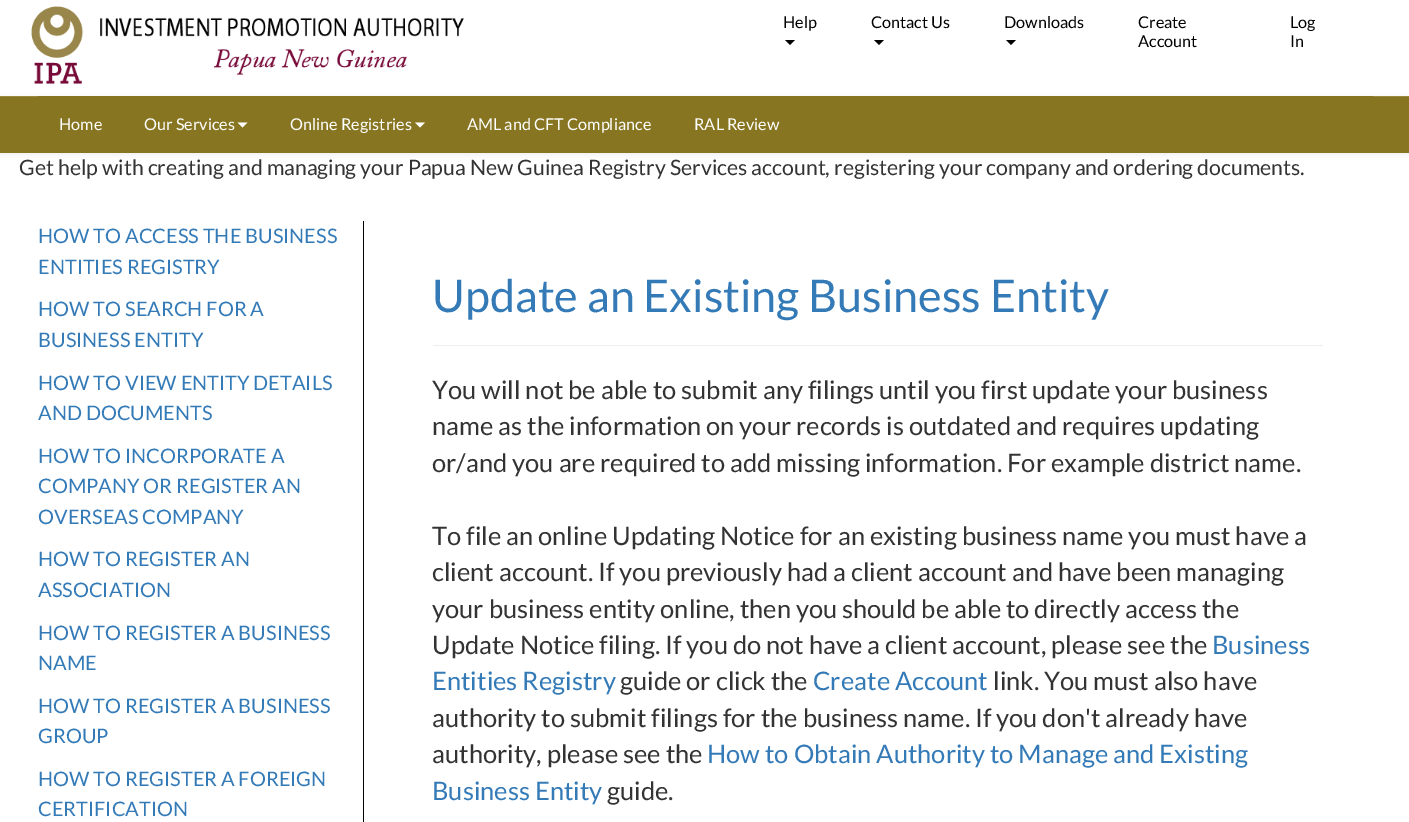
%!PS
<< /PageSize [1409 822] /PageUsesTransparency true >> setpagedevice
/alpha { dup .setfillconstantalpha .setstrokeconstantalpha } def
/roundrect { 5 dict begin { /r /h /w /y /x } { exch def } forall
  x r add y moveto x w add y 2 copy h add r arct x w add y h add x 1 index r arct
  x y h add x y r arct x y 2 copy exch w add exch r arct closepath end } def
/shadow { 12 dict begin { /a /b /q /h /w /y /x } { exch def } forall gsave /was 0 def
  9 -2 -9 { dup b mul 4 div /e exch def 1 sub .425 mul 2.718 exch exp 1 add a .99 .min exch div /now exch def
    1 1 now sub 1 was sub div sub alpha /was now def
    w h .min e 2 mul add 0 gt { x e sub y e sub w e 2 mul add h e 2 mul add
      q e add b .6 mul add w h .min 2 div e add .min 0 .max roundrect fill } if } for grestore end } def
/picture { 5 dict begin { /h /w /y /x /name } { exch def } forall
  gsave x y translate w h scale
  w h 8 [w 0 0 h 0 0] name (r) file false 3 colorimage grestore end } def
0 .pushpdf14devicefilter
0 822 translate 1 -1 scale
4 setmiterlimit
1 setgray
0 0 1409 822 rectfill
(img1.rgb) 31 6 433 78 picture
/Lato-Regular [16.25 0 0 -16.25 0 0] selectfont
0 setgray
783 28 moveto (Help) show
newpath 785 40 moveto 795 40 lineto 790 45 lineto closepath fill
871 28 moveto (Contact Us) show
newpath 874 40 moveto 884 40 lineto 879 45 lineto closepath fill
1004 28 moveto (Downloads) show
newpath 1006 40 moveto 1016 40 lineto 1011 45 lineto closepath fill
1138 28 moveto (Create) show
1138 47 moveto (Account) show
1290 28 moveto (Log) show
1290 47 moveto (In) show
0 98 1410 56 0 3 0.07 shadow
0.529 0.459 0.133 setrgbcolor
0 97 1409 56 rectfill
0.6 0.541 0.263 setrgbcolor
0 96 1409 1 rectfill
0.529 0.459 0.133 setrgbcolor
38 96 1335 1 rectfill
1 setgray
59 130 moveto (Home) show
144 130 moveto (Our Services) show
newpath 237.5 122.5 moveto 247.5 122.5 lineto 242.5 127.5 lineto closepath fill
290 130 moveto (Online Registries) show
newpath 415 122.5 moveto 425 122.5 lineto 420 127.5 lineto closepath fill
467 130 moveto (AML and CFT Compliance) show
694 130 moveto (RAL Review) show
/Lato-Regular [21.25 0 0 -21.25 0 0] selectfont
0.2 setgray
19 175 moveto (Get help with creating and managing your Papua New Guinea Registry Services account, registering your company and ordering documents.) show
/Lato-Regular [20 0 0 -20 0 0] selectfont
0.2 0.478 0.718 setrgbcolor
38 243 moveto (HOW TO ACCESS THE BUSINESS) show
38 274 moveto (ENTITIES REGISTRY) show
38 316 moveto (HOW TO SEARCH FOR A) show
38 347 moveto (BUSINESS ENTITY) show
38 390 moveto (HOW TO VIEW ENTITY DETAILS) show
38 420 moveto (AND DOCUMENTS) show
38 463 moveto (HOW TO INCORPORATE A) show
38 493 moveto (COMPANY OR REGISTER AN) show
38 524 moveto (OVERSEAS COMPANY) show
38 566 moveto (HOW TO REGISTER AN) show
38 597 moveto (ASSOCIATION) show
38 640 moveto (HOW TO REGISTER A BUSINESS) show
38 670 moveto (NAME) show
38 713 moveto (HOW TO REGISTER A BUSINESS) show
38 743 moveto (GROUP) show
38 786 moveto (HOW TO REGISTER A FOREIGN) show
38 816 moveto (CERTIFICATION) show
0 setgray
363 221 1 601 rectfill
/Lato-Regular [45 0 0 -45 0 0] selectfont
0.2 0.478 0.718 setrgbcolor
432 312 moveto (Update an Existing Business Entity) show
0.933 setgray
433 345 890 1 rectfill
/Lato-Regular [25.5 0 0 -25.5 0 0] selectfont
0.2 setgray
432 399 moveto (You will not be able to submit any filings until you first update your business) show
432 435 moveto (name as the information on your records is outdated and requires updating) show
432 472 moveto (or/and you are required to add missing information. For example district name.) show
432 545 moveto (To file an online Updating Notice for an existing business name you must have a) show
432 581 moveto (client account. If you previously had a client account and have been managing) show
432 618 moveto (your business entity online, then you should be able to directly access the) show
432 654 moveto (Update Notice filing. If you do not have a client account, please see the) show
0.2 0.478 0.718 setrgbcolor
1212 654 moveto (Business) show
432 690 moveto (Entities Registry) show
0.2 setgray
620 690 moveto (guide or click the) show
0.2 0.478 0.718 setrgbcolor
813 690 moveto (Create Account) show
0.2 setgray
993 690 moveto (link. You must also have) show
432 727 moveto (authority to submit filings for the business name. If you don't already have) show
432 763 moveto (authority, please see the) show
0.2 0.478 0.718 setrgbcolor
707 763 moveto (How to Obtain Authority to Manage and Existing) show
432 800 moveto (Business Entity) show
0.2 setgray
607 800 moveto (guide.) show
.poppdf14devicefilter showpage
